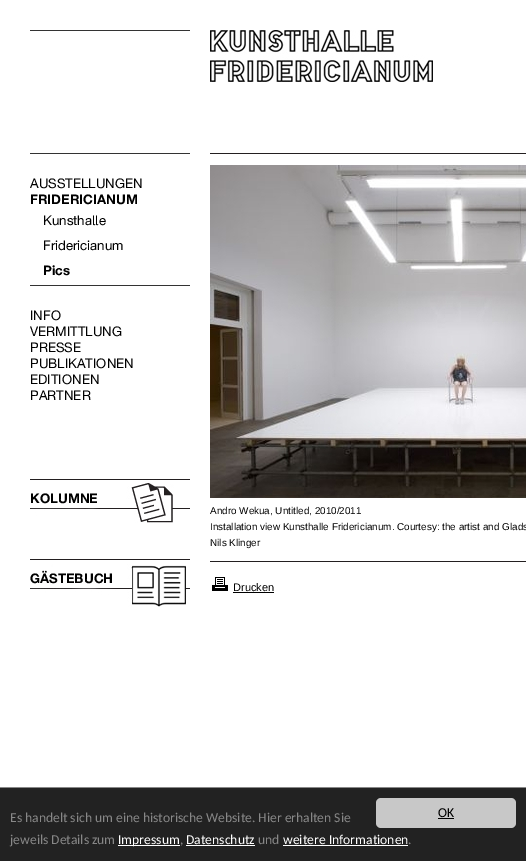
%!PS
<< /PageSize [526 861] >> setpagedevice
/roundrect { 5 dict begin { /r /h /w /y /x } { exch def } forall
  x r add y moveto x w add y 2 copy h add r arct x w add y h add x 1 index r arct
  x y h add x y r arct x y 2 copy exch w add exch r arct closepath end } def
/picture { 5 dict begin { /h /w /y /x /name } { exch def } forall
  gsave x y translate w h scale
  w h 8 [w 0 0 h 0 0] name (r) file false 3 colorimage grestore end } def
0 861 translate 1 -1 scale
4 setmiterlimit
1 setgray
0 0 526 861 rectfill
0.2 setgray
30 30 160 1 rectfill
(img1.rgb) 210 30 223 52 picture
30 153 160 1 rectfill
/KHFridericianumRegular-Regular [13.25 0 0 -13.25 0 0] selectfont
0 setgray
30 188 moveto (AUSSTELLUNGEN) show
/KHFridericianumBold-Bold [13.25 0 0 -13.25 0 0] selectfont
30 204 moveto (FRIDERICIANUM) show
/KHFridericianumRegular-Regular [13.25 0 0 -13.25 0 0] selectfont
43 225 moveto (Kunsthalle) show
43 250 moveto (Fridericianum) show
/KHFridericianumBold-Bold [13.25 0 0 -13.25 0 0] selectfont
43 275 moveto (Pics) show
0.2 setgray
30 285 160 1 rectfill
/KHFridericianumRegular-Regular [13.25 0 0 -13.25 0 0] selectfont
0 setgray
30 320 moveto (INFO) show
30 336 moveto (VERMITTLUNG) show
30 352 moveto (PRESSE) show
30 368 moveto (PUBLIKATIONEN) show
30 384 moveto (EDITIONEN) show
30 400 moveto (PARTNER) show
(img2.rgb) 30 479 160 44 picture
/KHFridericianumBold-Bold [13.25 0 0 -13.25 0 0] selectfont
30 503 moveto (KOLUMNE) show
(img3.rgb) 30 559 160 48 picture
30 583 moveto (GÄSTEBUCH) show
0.137 0.122 0.125 setrgbcolor
210 153 316 1 rectfill
(img4.rgb) 210 165 316 333 picture
/LiberationSans-Regular [9.9 0 0 -9.9 0 0] selectfont
0 setgray
210 514 moveto (Andro Wekua, Untitled, 2010/2011) show
210 530 moveto (Installation view Kunsthalle Fridericianum. Courtesy: the artist and Glads) show
210 546 moveto (Nils Klinger) show
0.137 0.122 0.125 setrgbcolor
210 561 316 1 rectfill
(img5.rgb) 212 577 16 14 picture
/LiberationSans-Regular [11 0 0 -11 0 0] selectfont
0 setgray
233 591 moveto (Drucken) show
233 592 41 1 rectfill
0.133 setgray
0 788 526 73 rectfill
0.533 setgray
0 787 526 1 rectfill
/Carlito-Regular [13.6 0 0 -13.6 0 0] selectfont
10 822 moveto (Es handelt sich um eine historische Website. Hier erhalten Sie) show
10 844 moveto (jeweils Details zum) show
1 setgray
118 845 62 1 rectfill
118 844 moveto (Impressum) show
0.533 setgray
180 844 moveto (,) show
1 setgray
186 844 moveto (Datenschutz) show
186 845 69 1 rectfill
0.533 setgray
258 844 moveto (und) show
1 setgray
283 844 moveto (weitere Informationen) show
283 845 125 1 rectfill
0.533 setgray
408 844 moveto (.) show
0.784 setgray
376 798 140 30 5 roundrect fill
0 setgray
438 817 moveto (OK) show
438 818 16 1 rectfill
showpage
